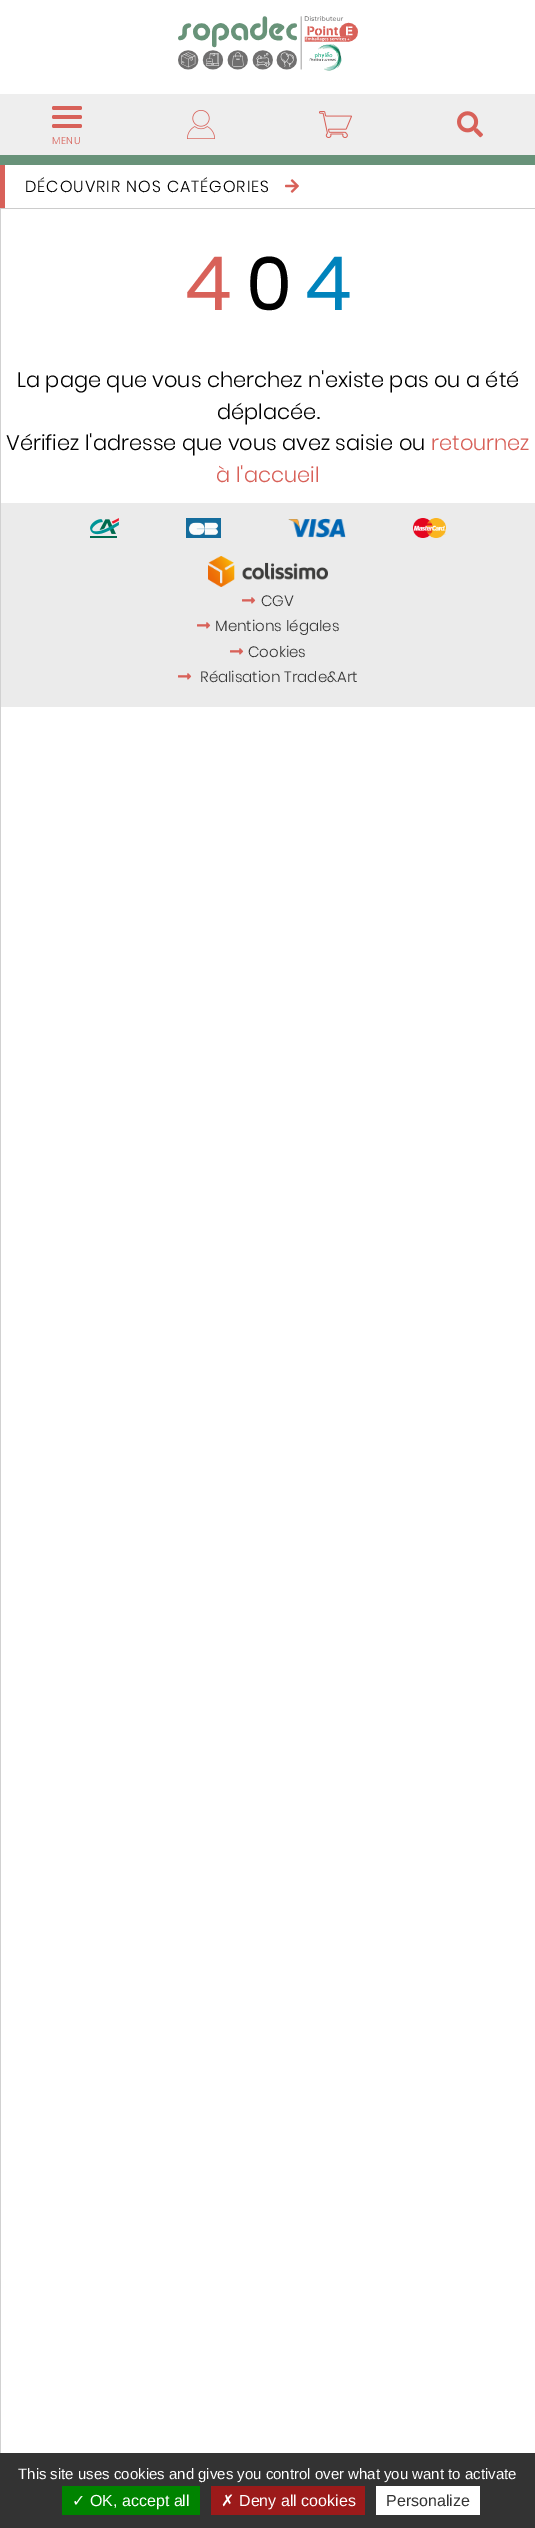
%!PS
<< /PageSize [535 2528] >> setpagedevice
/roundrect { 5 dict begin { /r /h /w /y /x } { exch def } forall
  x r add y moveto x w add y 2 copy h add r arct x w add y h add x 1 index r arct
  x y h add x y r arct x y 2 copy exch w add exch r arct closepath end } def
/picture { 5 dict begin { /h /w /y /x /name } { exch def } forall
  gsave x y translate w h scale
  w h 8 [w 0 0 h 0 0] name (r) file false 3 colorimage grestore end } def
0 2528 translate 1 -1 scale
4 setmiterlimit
1 setgray
0 0 535 2528 rectfill
0.8 setgray
0 208 535 1 rectfill
(img1.rgb) 178 16 180 55 picture
0.933 setgray
0 94 535 61 rectfill
(img2.rgb) 187 110 28 29 picture
(img3.rgb) 319 111 33 27 picture
(img4.rgb) 457 111 26 27 picture
0.847 0.38 0.349 setrgbcolor
52 106 30 4 2 roundrect fill
52 115 30 4 2 roundrect fill
52 124 30 4 2 roundrect fill
/Poppins-Light [10 0 0 -10 0 0] selectfont
52 144 moveto 0.5 0 (MENU) ashow
0.408 0.573 0.475 setrgbcolor
0 155 535 10 rectfill
0.847 0.38 0.349 setrgbcolor
0 165 5 43 rectfill
/Poppins-Light [16 0 0 -16 0 0] selectfont
0 setgray
25 192 moveto 1 0 (DÉCOUVRIR NOS CATÉGORIES) ashow
(img5.rgb) 285 179 14 14 picture
0.82 setgray
0 209 1 2244 rectfill
/Poppins-Regular [75 0 0 -75 0 0] selectfont
0.847 0.38 0.349 setrgbcolor
185 310 moveto 14 0 (4) ashow
0 setgray
246 310 moveto 14 0 (0) ashow
0 0.514 0.737 setrgbcolor
305 310 moveto 14 0 (4) ashow
/Poppins-Light [21 0 0 -21 0 0] selectfont
0 setgray
17 387 moveto (La page que vous cherchez n'existe pas ou a été) show
217 419 moveto (déplacée.) show
6 450 moveto (Vérifiez l'adresse que vous avez saisie ou) show
0.847 0.38 0.349 setrgbcolor
431 450 moveto (retournez) show
216 482 moveto (à l'accueil) show
0.922 setgray
1 503 534 204 rectfill
(img6.rgb) 90 518 29 20 picture
(img7.rgb) 186 518 35 20 picture
(img8.rgb) 288 518 58 20 picture
(img9.rgb) 413 518 33 20 picture
(img10.rgb) 208 556 120 31 picture
(img11.rgb) 242 597 14 7 picture
/Poppins-Light [15 0 0 -15 0 0] selectfont
0.2 setgray
261 606 moveto (CGV) show
(img11.rgb) 197 622 14 7 picture
215 631 moveto (Mentions légales) show
(img11.rgb) 230 648 14 7 picture
248 657 moveto (Cookies) show
(img11.rgb) 178 673 14 7 picture
200 682 moveto (Réalisation Trade&Art) show
0 2453 535 75 rectfill
/LiberationSans-Regular [15 0 0 -15 0 0] selectfont
1 setgray
18 2479 moveto (This site uses cookies and gives you control over what you want to activate) show
0 0.514 0 setrgbcolor
62 2486 138 29 rectfill
/DejaVuSans-Regular [16 0 0 -16 0 0] selectfont
1 setgray
72 2506 moveto (✓) show
/LiberationSans-Regular [16 0 0 -16 0 0] selectfont
90 2506 moveto (OK, accept all) show
0.612 0.102 0.102 setrgbcolor
211 2486 154 29 rectfill
/DejaVuSans-Regular [16 0 0 -16 0 0] selectfont
1 setgray
221 2506 moveto (✗) show
/LiberationSans-Regular [16 0 0 -16 0 0] selectfont
239 2506 moveto (Deny all cookies) show
376 2486 104 29 rectfill
0.2 setgray
386 2506 moveto (Personalize) show
showpage
